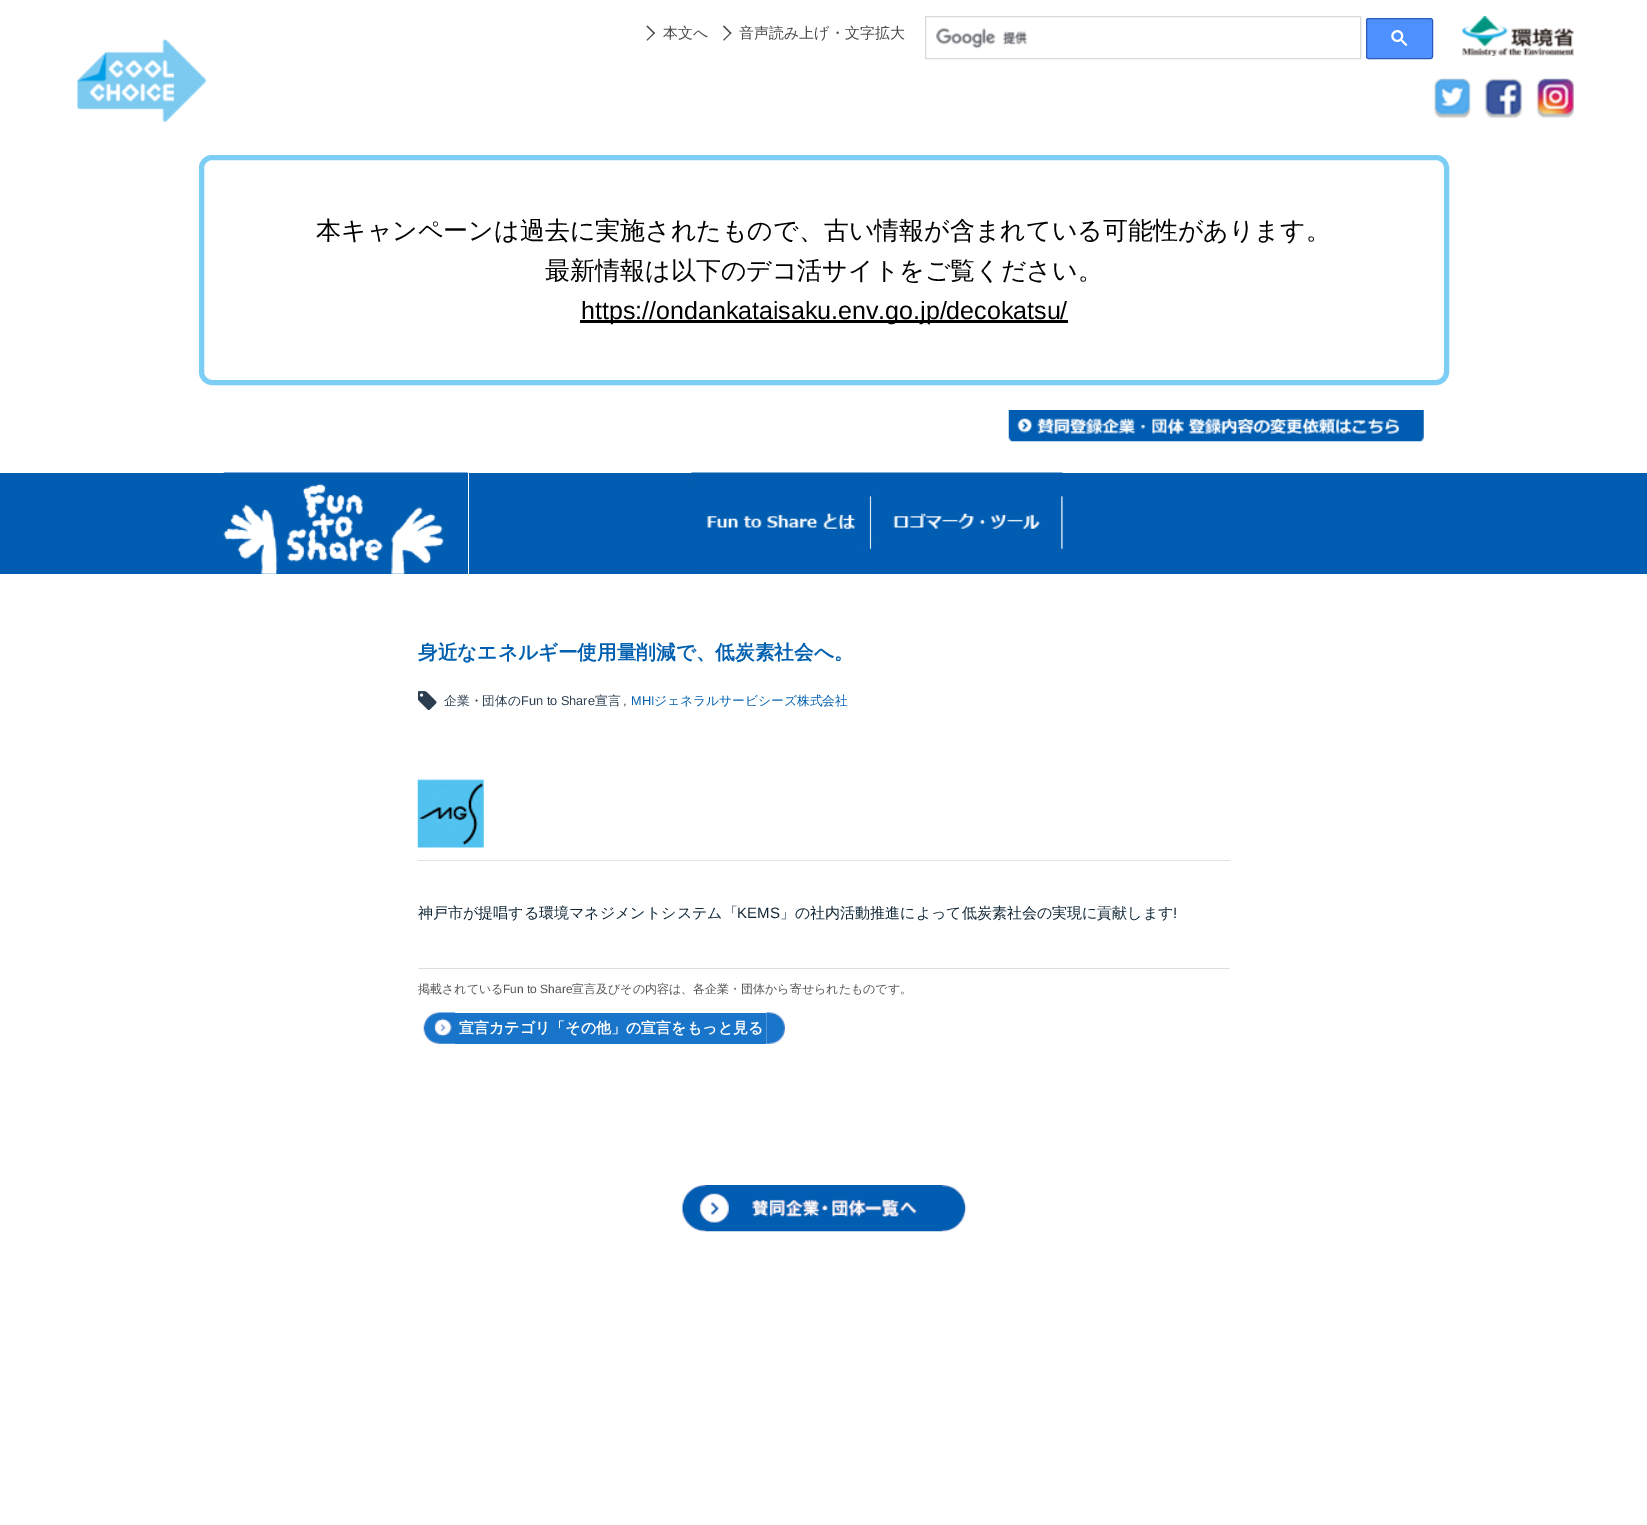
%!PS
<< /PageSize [1647 1525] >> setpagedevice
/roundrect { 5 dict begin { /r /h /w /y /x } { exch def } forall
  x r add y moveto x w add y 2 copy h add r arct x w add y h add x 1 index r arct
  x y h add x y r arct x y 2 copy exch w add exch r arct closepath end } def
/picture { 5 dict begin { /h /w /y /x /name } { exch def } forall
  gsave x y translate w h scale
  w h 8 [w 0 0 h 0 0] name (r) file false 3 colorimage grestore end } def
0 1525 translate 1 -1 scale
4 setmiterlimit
1 setgray
0 0 1647 1525 rectfill
0.29 setgray
newpath 647.5 25.5 moveto 655 33 lineto 654 34 lineto 646.5 26.5 lineto closepath fill
newpath 654 32.5 moveto 655 33 lineto 647.5 40.5 lineto 646.5 40 lineto closepath fill
/WenQuanYiZenHei-Medium [15 0 0 -15 0 0] selectfont
663 38 moveto (本文へ) show
newpath 724 25.5 moveto 731.5 33 lineto 730.5 34 lineto 723 26.5 lineto closepath fill
newpath 730.5 32.5 moveto 731.5 33 lineto 724 40.5 lineto 723 40 lineto closepath fill
739 38 moveto (音声読み上げ・文字拡大) show
0.851 setgray
925.5 16.5 435 42 rectstroke
(img1.rgb) 936 28 92 21 picture
0.302 0.565 0.996 setrgbcolor
1366.5 18.5 66 40 2 roundrect gsave fill grestore
0.184 0.357 0.718 setrgbcolor
stroke
(img2.rgb) 1391 30 17 16 picture
(img3.rgb) 1462 16 112 40 picture
(img4.rgb) 77 38 130 85 picture
(img5.rgb) 1433 78 38 40 picture
(img6.rgb) 1484 78 39 40 picture
(img7.rgb) 1536 78 38 40 picture
0.486 0.808 0.957 setrgbcolor
5 setlinewidth
201.5 157.5 1245 225 10.5 roundrect stroke
/WenQuanYiZenHei-Medium [25 0 0 -25 0 0] selectfont
0 setgray
316 239 moveto (本キャンペーンは過去に実施されたもので、古い情報が含まれている可能性があります。) show
545 279 moveto (最新情報は以下のデコ活サイトをご覧ください。) show
580 320 488 3 rectfill
/LiberationSans-Regular [25 0 0 -25 0 0] selectfont
581 319 moveto (https://ondankataisaku.env.go.jp/decokatsu/) show
(img8.rgb) 1008 410 416 32 picture
0 0.365 0.698 setrgbcolor
0 473 1647 101 rectfill
1 setgray
468 473 1 101 rectfill
(img9.rgb) 223 472 245 102 picture
(img10.rgb) 691 472 181 102 picture
(img11.rgb) 871 472 192 79 picture
0.871 0.89 0.902 setrgbcolor
418 860 812 1 rectfill
/WenQuanYiZenHei-Bold [19.65 0 0 -19.65 0 0] selectfont
0 0.373 0.686 setrgbcolor
418 659 moveto (身近なエネルギー使用量削減で、低炭素社会へ。) show
(img12.rgb) 418 691 19 20 picture
/WenQuanYiZenHei-Medium [12.75 0 0 -12.75 0 0] selectfont
0.169 0.243 0.314 setrgbcolor
444 705 moveto (企業・団体の) show
/LiberationSans-Regular [12.75 0 0 -12.75 0 0] selectfont
521 705 moveto (Fun to Share) show
/WenQuanYiZenHei-Medium [12.75 0 0 -12.75 0 0] selectfont
595 705 moveto (宣言) show
/LiberationSans-Regular [12.75 0 0 -12.75 0 0] selectfont
623 705 moveto (,) show
0 0.373 0.686 setrgbcolor
631 705 moveto (MHI) show
/WenQuanYiZenHei-Medium [12.75 0 0 -12.75 0 0] selectfont
654 705 moveto (ジェネラルサービシーズ株式会社) show
(img13.rgb) 417 778 67 70 picture
/WenQuanYiZenHei-Medium [15 0 0 -15 0 0] selectfont
0.067 0.153 0.216 setrgbcolor
418 918 moveto (神戸市が提唱する環境マネジメントシステム「) show
/LiberationSans-Regular [15 0 0 -15 0 0] selectfont
737 918 moveto (KEMS) show
/WenQuanYiZenHei-Medium [15 0 0 -15 0 0] selectfont
780 918 moveto (」の社内活動推進によって低炭素社会の実現に貢献します) show
/LiberationSans-Regular [15 0 0 -15 0 0] selectfont
1173 918 moveto (!) show
0.847 0.871 0.882 setrgbcolor
418 968 812 1 rectfill
/WenQuanYiZenHei-Medium [12 0 0 -12 0 0] selectfont
0.333 setgray
418 993 moveto (掲載されている) show
/LiberationSans-Regular [12 0 0 -12 0 0] selectfont
503 993 moveto (Fun to Share) show
/WenQuanYiZenHei-Medium [12 0 0 -12 0 0] selectfont
572 993 moveto (宣言及びその内容は、各企業・団体から寄せられたものです。) show
(img14.rgb) 423 1012 32 32 picture
0.094 0.459 0.792 setrgbcolor
455 1013 311 31 rectfill
/WenQuanYiZenHei-Bold [15 0 0 -15 0 0] selectfont
1 setgray
459 1033 moveto (宣言カテゴリ「その他」の宣言をもっと見る) show
(img15.rgb) 766 1012 19 32 picture
(img16.rgb) 682 1185 285 47 picture
showpage
